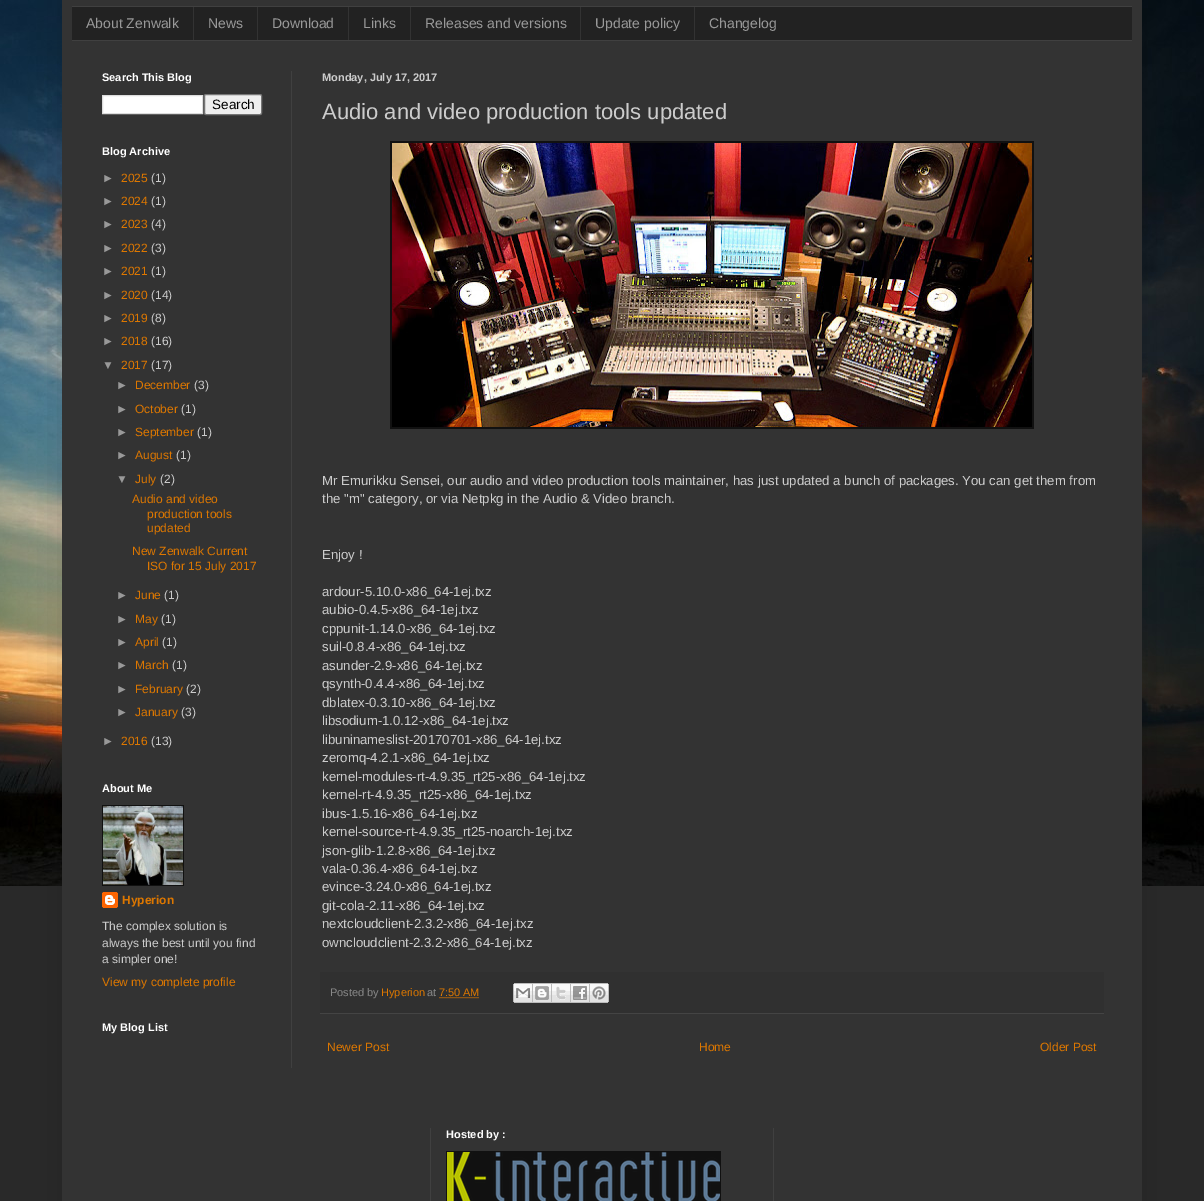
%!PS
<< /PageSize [1204 1201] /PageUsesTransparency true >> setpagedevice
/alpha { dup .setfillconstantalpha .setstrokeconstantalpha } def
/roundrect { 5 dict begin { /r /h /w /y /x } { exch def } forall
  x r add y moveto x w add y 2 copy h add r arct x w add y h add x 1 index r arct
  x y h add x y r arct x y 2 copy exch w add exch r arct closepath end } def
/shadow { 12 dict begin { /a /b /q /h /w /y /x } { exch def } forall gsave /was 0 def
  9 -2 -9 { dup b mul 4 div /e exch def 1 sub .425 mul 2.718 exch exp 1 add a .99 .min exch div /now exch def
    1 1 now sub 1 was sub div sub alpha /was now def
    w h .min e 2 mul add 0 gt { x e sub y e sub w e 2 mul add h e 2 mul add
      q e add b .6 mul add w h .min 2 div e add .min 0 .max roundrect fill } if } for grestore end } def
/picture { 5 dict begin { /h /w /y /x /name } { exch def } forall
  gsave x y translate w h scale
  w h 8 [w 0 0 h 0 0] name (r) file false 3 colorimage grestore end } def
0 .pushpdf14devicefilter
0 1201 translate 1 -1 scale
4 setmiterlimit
0.161 setgray
0 0 1204 1201 rectfill
(img1.rgb) 0 0 1204 886 picture
0 setgray
62 -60 1080 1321 0 20 0.15 shadow
0.2 setgray
62 0 1080 1201 rectfill
0.133 setgray
72 7 1060 33 rectfill
0.251 setgray
72 6 1060 1 rectfill
72 40 1060 1 rectfill
/LiberationSans-Regular [14 0 0 -14 0 0] selectfont
0.6 setgray
86 28 moveto (About Zenwalk) show
0.2 setgray
193 7 1 33 rectfill
0.6 setgray
208 28 moveto (News) show
0.2 setgray
257 7 1 33 rectfill
0.6 setgray
272 28 moveto (Download) show
0.2 setgray
348 7 1 33 rectfill
0.6 setgray
363 28 moveto (Links) show
0.2 setgray
410 7 1 33 rectfill
0.6 setgray
425 28 moveto (Releases and versions) show
0.2 setgray
580 7 1 33 rectfill
0.6 setgray
595 28 moveto (Update policy) show
0.2 setgray
694 7 1 33 rectfill
0.6 setgray
709 28 moveto (Changelog) show
0.251 setgray
291 71 1 997 rectfill
/LiberationSans-Bold [11 0 0 -11 0 0] selectfont
1 setgray
102 81 moveto (Search This Blog) show
newpath 102.5 95.5 moveto 202.5 95.5 lineto 202.5 113.5 lineto 102.5 113.5 lineto closepath gsave fill grestore
0.867 setgray
stroke
0.937 setgray
204.5 94.5 57 20 1.5 roundrect gsave fill grestore
0.463 setgray
stroke
/LiberationSans-Regular [13.5 0 0 -13.5 0 0] selectfont
0 setgray
212 109 moveto (Search) show
/LiberationSans-Bold [11 0 0 -11 0 0] selectfont
1 setgray
102 155 moveto (Blog Archive) show
/LiberationSans-Regular [12 0 0 -12 0 0] selectfont
0.6 setgray
102 182 moveto (►) show
0.867 0.467 0 setrgbcolor
121 182 moveto (2025) show
0.8 setgray
151 182 moveto (\(1\)) show
0.6 setgray
102 205 moveto (►) show
0.867 0.467 0 setrgbcolor
121 205 moveto (2024) show
0.8 setgray
151 205 moveto (\(1\)) show
0.6 setgray
102 228 moveto (►) show
0.867 0.467 0 setrgbcolor
121 228 moveto (2023) show
0.8 setgray
151 228 moveto (\(4\)) show
0.6 setgray
102 252 moveto (►) show
0.867 0.467 0 setrgbcolor
121 252 moveto (2022) show
0.8 setgray
151 252 moveto (\(3\)) show
0.6 setgray
102 275 moveto (►) show
0.867 0.467 0 setrgbcolor
121 275 moveto (2021) show
0.8 setgray
151 275 moveto (\(1\)) show
0.6 setgray
102 299 moveto (►) show
0.867 0.467 0 setrgbcolor
121 299 moveto (2020) show
0.8 setgray
151 299 moveto (\(14\)) show
0.6 setgray
102 322 moveto (►) show
0.867 0.467 0 setrgbcolor
121 322 moveto (2019) show
0.8 setgray
151 322 moveto (\(8\)) show
0.6 setgray
102 345 moveto (►) show
0.867 0.467 0 setrgbcolor
121 345 moveto (2018) show
0.8 setgray
151 345 moveto (\(16\)) show
0.6 setgray
102 369 moveto (▼) show
0.867 0.467 0 setrgbcolor
121 369 moveto (2017) show
0.8 setgray
151 369 moveto (\(17\)) show
0.6 setgray
116 389 moveto (►) show
0.867 0.467 0 setrgbcolor
135 389 moveto (December) show
0.8 setgray
194 389 moveto (\(3\)) show
0.6 setgray
116 413 moveto (►) show
0.867 0.467 0 setrgbcolor
135 413 moveto (October) show
0.8 setgray
181 413 moveto (\(1\)) show
0.6 setgray
116 436 moveto (►) show
0.867 0.467 0 setrgbcolor
135 436 moveto (September) show
0.8 setgray
197 436 moveto (\(1\)) show
0.6 setgray
116 459 moveto (►) show
0.867 0.467 0 setrgbcolor
135 459 moveto (August) show
0.8 setgray
176 459 moveto (\(1\)) show
0.6 setgray
116 483 moveto (▼) show
0.867 0.467 0 setrgbcolor
135 483 moveto (July) show
0.8 setgray
160 483 moveto (\(2\)) show
0.867 0.467 0 setrgbcolor
132 503 moveto (Audio and video) show
147 518 moveto (production tools) show
147 532 moveto (updated) show
132 555 moveto (New Zenwalk Current) show
147 570 moveto (ISO for 15 July 2017) show
0.6 setgray
116 599 moveto (►) show
0.867 0.467 0 setrgbcolor
135 599 moveto (June) show
0.8 setgray
164 599 moveto (\(1\)) show
0.6 setgray
116 623 moveto (►) show
0.867 0.467 0 setrgbcolor
135 623 moveto (May) show
0.8 setgray
161 623 moveto (\(1\)) show
0.6 setgray
116 646 moveto (►) show
0.867 0.467 0 setrgbcolor
135 646 moveto (April) show
0.8 setgray
162 646 moveto (\(1\)) show
0.6 setgray
116 669 moveto (►) show
0.867 0.467 0 setrgbcolor
135 669 moveto (March) show
0.8 setgray
172 669 moveto (\(1\)) show
0.6 setgray
116 693 moveto (►) show
0.867 0.467 0 setrgbcolor
135 693 moveto (February) show
0.8 setgray
186 693 moveto (\(2\)) show
0.6 setgray
116 716 moveto (►) show
0.867 0.467 0 setrgbcolor
135 716 moveto (January) show
0.8 setgray
181 716 moveto (\(3\)) show
0.6 setgray
102 745 moveto (►) show
0.867 0.467 0 setrgbcolor
121 745 moveto (2016) show
0.8 setgray
151 745 moveto (\(13\)) show
/LiberationSans-Bold [11 0 0 -11 0 0] selectfont
1 setgray
102 792 moveto (About Me) show
0.067 setgray
102 805 82 81 rectfill
(img2.rgb) 103 806 80 79 picture
(img3.rgb) 102 892 16 16 picture
/LiberationSans-Bold [12 0 0 -12 0 0] selectfont
0.867 0.467 0 setrgbcolor
122 904 moveto (Hyperion) show
/LiberationSans-Regular [12 0 0 -12 0 0] selectfont
0.8 setgray
102 930 moveto (The complex solution is) show
102 947 moveto (always the best until you find) show
102 963 moveto (a simpler one!) show
0.867 0.467 0 setrgbcolor
102 986 moveto (View my complete profile) show
/LiberationSans-Bold [11 0 0 -11 0 0] selectfont
1 setgray
102 1031 moveto (My Blog List) show
0.8 setgray
322 81 moveto (Monday, July 17, 2017) show
/LiberationSans-Regular [22 0 0 -22 0 0] selectfont
322 119 moveto (Audio and video production tools updated) show
0.067 setgray
390 141 644 288 rectfill
(img4.rgb) 392 143 640 284 picture
/LiberationSans-Regular [13.2 0 0 -13.2 0 0] selectfont
0.8 setgray
322 485 moveto (Mr Emurikku Sensei, our audio and video production tools maintainer, has just updated a bunch of packages. You can get them from) show
322 503 moveto (the "m" category, or via Netpkg in the Audio & Video branch.) show
322 559 moveto (Enjoy !) show
322 596 moveto (ardour-5.10.0-x86_64-1ej.txz) show
322 614 moveto (aubio-0.4.5-x86_64-1ej.txz) show
322 633 moveto (cppunit-1.14.0-x86_64-1ej.txz) show
322 651 moveto (suil-0.8.4-x86_64-1ej.txz) show
322 670 moveto (asunder-2.9-x86_64-1ej.txz) show
322 688 moveto (qsynth-0.4.4-x86_64-1ej.txz) show
322 707 moveto (dblatex-0.3.10-x86_64-1ej.txz) show
322 725 moveto (libsodium-1.0.12-x86_64-1ej.txz) show
322 744 moveto (libuninameslist-20170701-x86_64-1ej.txz) show
322 762 moveto (zeromq-4.2.1-x86_64-1ej.txz) show
322 781 moveto (kernel-modules-rt-4.9.35_rt25-x86_64-1ej.txz) show
322 799 moveto (kernel-rt-4.9.35_rt25-x86_64-1ej.txz) show
322 818 moveto (ibus-1.5.16-x86_64-1ej.txz) show
322 836 moveto (kernel-source-rt-4.9.35_rt25-noarch-1ej.txz) show
322 855 moveto (json-glib-1.2.8-x86_64-1ej.txz) show
322 873 moveto (vala-0.36.4-x86_64-1ej.txz) show
322 891 moveto (evince-3.24.0-x86_64-1ej.txz) show
322 910 moveto (git-cola-2.11-x86_64-1ej.txz) show
322 928 moveto (nextcloudclient-2.3.2-x86_64-1ej.txz) show
322 947 moveto (owncloudclient-2.3.2-x86_64-1ej.txz) show
0.188 setgray
320 972 784 41 rectfill
0.267 setgray
320 1013 784 1 rectfill
/LiberationSans-Regular [11 0 0 -11 0 0] selectfont
0.533 setgray
330 996 moveto (Posted by) show
0.867 0.467 0 setrgbcolor
381 996 moveto (Hyperion) show
0.533 setgray
427 996 moveto (at) show
0.867 0.467 0 setrgbcolor
439 996 moveto (7:50 AM) show
[1 1] 0 setdash
newpath 439.5 997.5 moveto 478.5 997.5 lineto stroke
(img5.rgb) 513 983 20 20 picture
(img6.rgb) 533 983 19 20 picture
(img7.rgb) 552 983 19 20 picture
(img8.rgb) 571 983 19 20 picture
(img9.rgb) 590 983 19 20 picture
/LiberationSans-Regular [12 0 0 -12 0 0] selectfont
327 1051 moveto (Newer Post) show
699 1051 moveto (Home) show
1040 1051 moveto (Older Post) show
0.251 setgray
430 1128 1 73 rectfill
/LiberationSans-Bold [11 0 0 -11 0 0] selectfont
1 setgray
446 1138 moveto (Hosted by :) show
0.067 setgray
446 1151 275 50 rectfill
(img10.rgb) 447 1152 273 49 picture
0.251 setgray
773 1128 1 73 rectfill
.poppdf14devicefilter showpage
